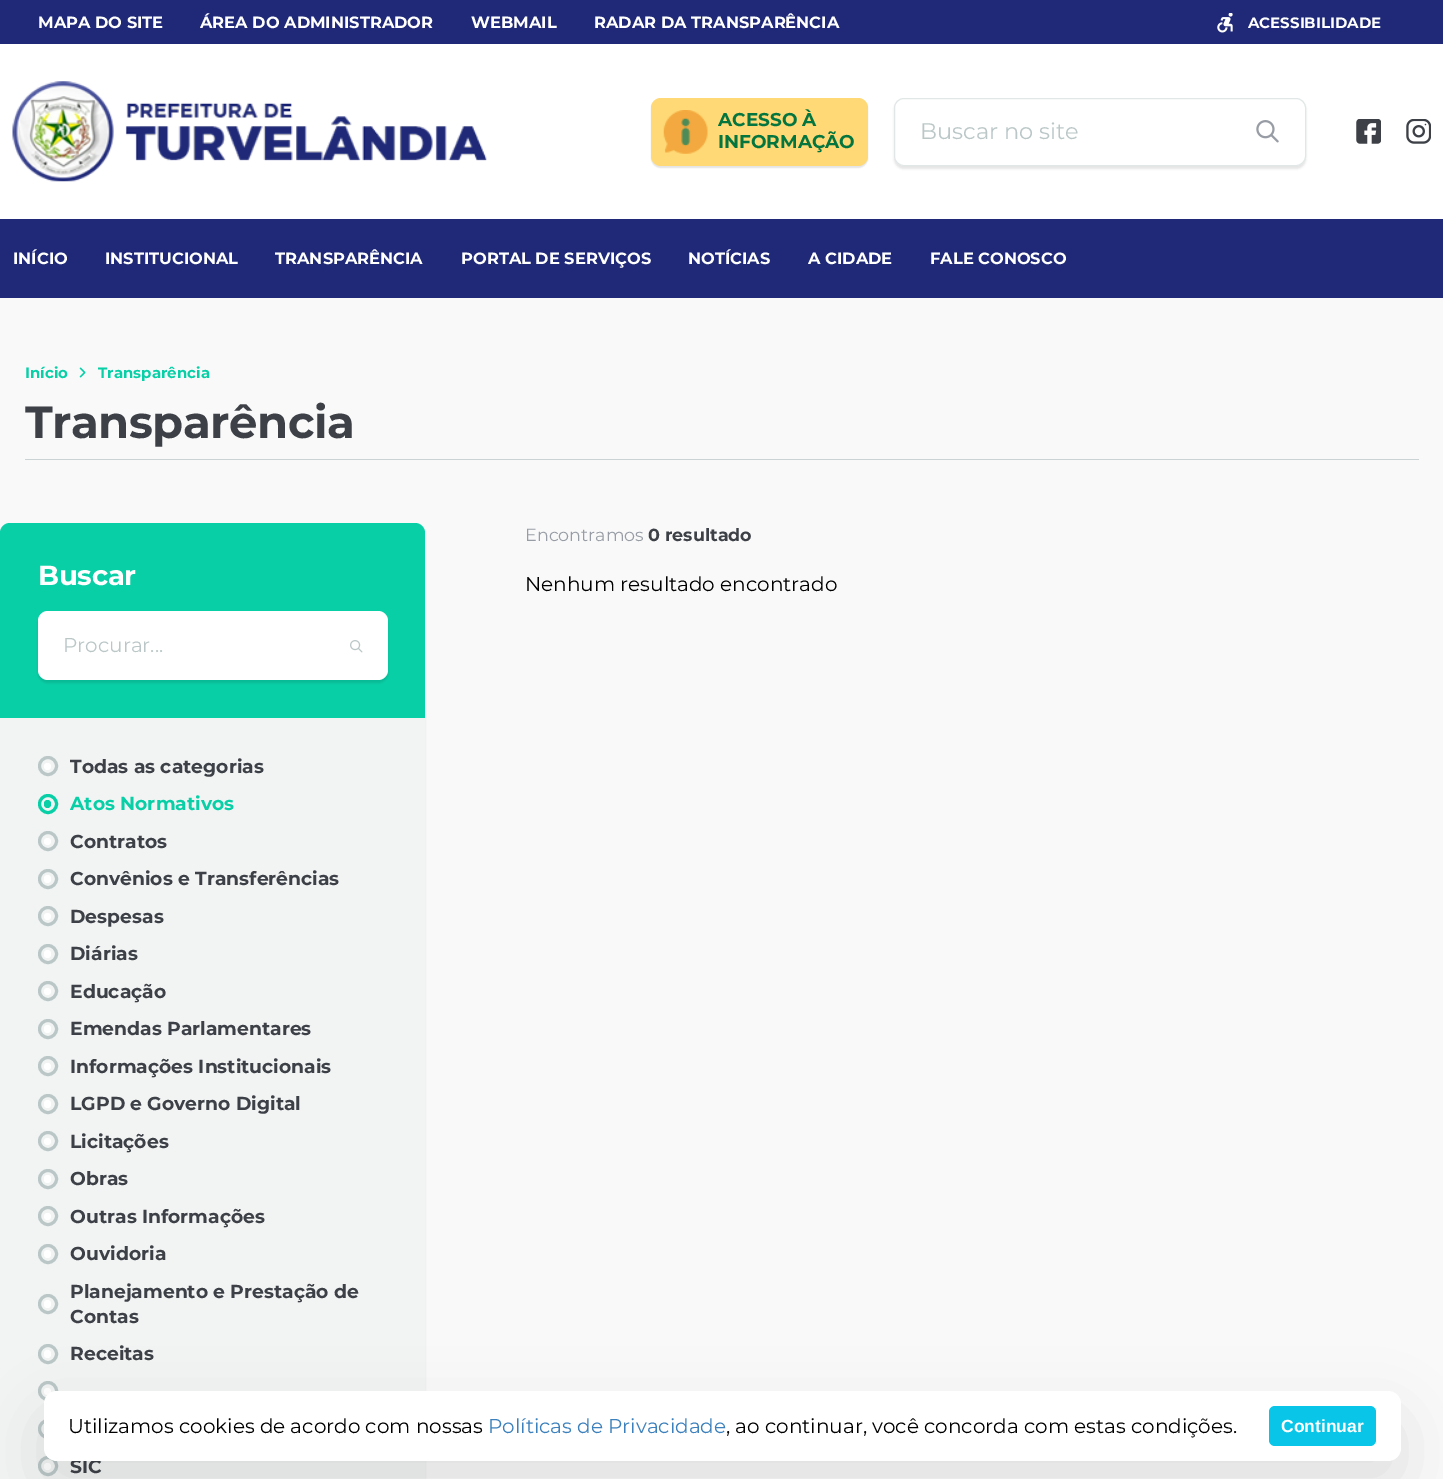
%!PS
<< /PageSize [1443 1479] /PageUsesTransparency true >> setpagedevice
/alpha { dup .setfillconstantalpha .setstrokeconstantalpha } def
/roundrect { 5 dict begin { /r /h /w /y /x } { exch def } forall
  x r add y moveto x w add y 2 copy h add r arct x w add y h add x 1 index r arct
  x y h add x y r arct x y 2 copy exch w add exch r arct closepath end } def
/shadow { 12 dict begin { /a /b /q /h /w /y /x } { exch def } forall gsave /was 0 def
  9 -2 -9 { dup b mul 4 div /e exch def 1 sub .425 mul 2.718 exch exp 1 add a .99 .min exch div /now exch def
    1 1 now sub 1 was sub div sub alpha /was now def
    w h .min e 2 mul add 0 gt { x e sub y e sub w e 2 mul add h e 2 mul add
      q e add b .6 mul add w h .min 2 div e add .min 0 .max roundrect fill } if } for grestore end } def
/picture { 5 dict begin { /h /w /y /x /name } { exch def } forall
  gsave x y translate w h scale
  w h 8 [w 0 0 h 0 0] name (r) file false 3 colorimage grestore end } def
0 .pushpdf14devicefilter
0 1479 translate 1 -1 scale
4 setmiterlimit
0.976 setgray
0 0 1443 1479 rectfill
0.122 0.161 0.467 setrgbcolor
0 0 1443 44 rectfill
/Montserrat-Bold [16.25 0 0 -16.25 0 0] selectfont
1 setgray
38 28 moveto (MAPA DO SITE) show
200 28 moveto (ÁREA DO ADMINISTRADOR) show
471 28 moveto (WEBMAIL) show
594 28 moveto (RADAR DA TRANSPARÊNCIA) show
(img1.rgb) 1217 13 16 20 picture
/Montserrat-Bold [15 0 0 -15 0 0] selectfont
1248 28 moveto (ACESSIBILIDADE) show
0 44 1443 175 rectfill
(img2.rgb) 12 81 475 101 picture
0 setgray
651 99 217 69 10 0.5 0.1 shadow
1 0.851 0.463 setrgbcolor
651 98 217 68 10 roundrect fill
(img3.rgb) 663 110 45 44 picture
/Montserrat-Bold [18.5 0 0 -18.5 0 0] selectfont
0.016 0.459 0.243 setrgbcolor
718 126 moveto (ACESSO À) show
718 148 moveto (INFORMAÇÃO) show
0 setgray
894 100 412 69 10 1 0.1 shadow
1 setgray
894.5 98.5 411 67 9.5 roundrect gsave fill grestore
0.882 0.906 0.906 setrgbcolor
stroke
/Montserrat-Regular [22.5 0 0 -22.5 0 0] selectfont
0.733 0.78 0.78 setrgbcolor
920 139 moveto (Buscar no site) show
(img4.rgb) 1256 120 23 23 picture
(img5.rgb) 1356 119 25 25 picture
(img6.rgb) 1406 119 25 25 picture
0.122 0.161 0.467 setrgbcolor
0 219 1443 79 rectfill
/Montserrat-Bold [16.25 0 0 -16.25 0 0] selectfont
1 setgray
13 264 moveto (INÍCIO) show
105 264 moveto (INSTITUCIONAL) show
275 264 moveto (TRANSPARÊNCIA) show
461 264 moveto (PORTAL DE SERVIÇOS) show
688 264 moveto (NOTÍCIAS) show
808 264 moveto (A CIDADE) show
930 264 moveto (FALE CONOSCO) show
/Montserrat-Bold [15 0 0 -15 0 0] selectfont
0.035 0.812 0.655 setrgbcolor
25 378 moveto (Início) show
(img7.rgb) 79 367 7 11 picture
98 378 moveto (Transparência) show
0.8 0.827 0.835 setrgbcolor
25 459 1394 1 rectfill
/Montserrat-Bold [45 0 0 -45 0 0] selectfont
0.239 0.255 0.278 setrgbcolor
25 438 moveto -0.5 0 (Transparência) ashow
0 setgray
0 525 425 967 10 1 0.1 shadow
0.035 0.812 0.655 setrgbcolor
newpath 10 523 moveto 415 523 lineto 420.5 523 425 527.5 425 533 curveto 425 718 lineto 0 718 lineto 0 533 lineto 0 527.5 4.5 523 10 523 curveto closepath fill
/Montserrat-Bold [27.5 0 0 -27.5 0 0] selectfont
1 setgray
38 585 moveto -0.25 0 (Buscar) ashow
0 setgray
38 614 350 69 10 1 0.1 shadow
1 setgray
38 611 350 69 10 roundrect fill
/Montserrat-Regular [20 0 0 -20 0 0] selectfont
0.733 0.78 0.78 setrgbcolor
63 652 moveto (Procurar...) show
(img8.rgb) 350 640 13 13 picture
0.949 0.957 0.957 setrgbcolor
0 718 425 761 rectfill
0.733 0.78 0.78 setrgbcolor
3 setlinewidth
newpath 48 766 8.5 0 360 arc closepath stroke
1 setgray
newpath 47.5 766.5 3.5 0 360 arc closepath fill
/Montserrat-Bold [18.75 0 0 -18.75 0 0] selectfont
0.239 0.255 0.278 setrgbcolor
70 773 moveto (Todas as categorias) show
0.035 0.812 0.655 setrgbcolor
newpath 48 804 8.5 0 360 arc closepath stroke
44 800 7 8 3.5 roundrect fill
70 810 moveto (Atos Normativos) show
0.733 0.78 0.78 setrgbcolor
newpath 48 841 8.5 0 360 arc closepath stroke
1 setgray
newpath 47.5 841.5 3.5 0 360 arc closepath fill
0.239 0.255 0.278 setrgbcolor
70 848 moveto (Contratos) show
0.733 0.78 0.78 setrgbcolor
newpath 48 879 8.5 0 360 arc closepath stroke
1 setgray
44 875 7 8 3.5 roundrect fill
0.239 0.255 0.278 setrgbcolor
70 885 moveto (Convênios e Transferências) show
0.733 0.78 0.78 setrgbcolor
newpath 48 916 8.5 0 360 arc closepath stroke
1 setgray
newpath 47.5 916.5 3.5 0 360 arc closepath fill
0.239 0.255 0.278 setrgbcolor
70 923 moveto (Despesas) show
0.733 0.78 0.78 setrgbcolor
newpath 48 954 8.5 0 360 arc closepath stroke
1 setgray
44 950 7 8 3.5 roundrect fill
0.239 0.255 0.278 setrgbcolor
70 960 moveto (Diárias) show
0.733 0.78 0.78 setrgbcolor
newpath 48 991 8.5 0 360 arc closepath stroke
1 setgray
newpath 47.5 991.5 3.5 0 360 arc closepath fill
0.239 0.255 0.278 setrgbcolor
70 998 moveto (Educação) show
0.733 0.78 0.78 setrgbcolor
newpath 48 1029 8.5 0 360 arc closepath stroke
1 setgray
44 1025 7 8 3.5 roundrect fill
0.239 0.255 0.278 setrgbcolor
70 1035 moveto (Emendas Parlamentares) show
0.733 0.78 0.78 setrgbcolor
newpath 48 1066 8.5 0 360 arc closepath stroke
1 setgray
newpath 47.5 1066.5 3.5 0 360 arc closepath fill
0.239 0.255 0.278 setrgbcolor
70 1073 moveto (Informações Institucionais) show
0.733 0.78 0.78 setrgbcolor
newpath 48 1104 8.5 0 360 arc closepath stroke
1 setgray
44 1100 7 8 3.5 roundrect fill
0.239 0.255 0.278 setrgbcolor
70 1110 moveto (LGPD e Governo Digital) show
0.733 0.78 0.78 setrgbcolor
newpath 48 1141 8.5 0 360 arc closepath stroke
1 setgray
newpath 47.5 1141.5 3.5 0 360 arc closepath fill
0.239 0.255 0.278 setrgbcolor
70 1148 moveto (Licitações) show
0.733 0.78 0.78 setrgbcolor
newpath 48 1179 8.5 0 360 arc closepath stroke
1 setgray
44 1175 7 8 3.5 roundrect fill
0.239 0.255 0.278 setrgbcolor
70 1185 moveto (Obras) show
0.733 0.78 0.78 setrgbcolor
newpath 48 1216 8.5 0 360 arc closepath stroke
1 setgray
newpath 47.5 1216.5 3.5 0 360 arc closepath fill
0.239 0.255 0.278 setrgbcolor
70 1223 moveto (Outras Informações) show
0.733 0.78 0.78 setrgbcolor
newpath 48 1254 8.5 0 360 arc closepath stroke
1 setgray
44 1250 7 8 3.5 roundrect fill
0.239 0.255 0.278 setrgbcolor
70 1260 moveto (Ouvidoria) show
0.733 0.78 0.78 setrgbcolor
newpath 48 1304 8.5 0 360 arc closepath stroke
1 setgray
44 1300 7 8 3.5 roundrect fill
0.239 0.255 0.278 setrgbcolor
70 1298 moveto (Planejamento e Prestação de) show
70 1323 moveto (Contas) show
0.733 0.78 0.78 setrgbcolor
newpath 48 1354 8.5 0 360 arc closepath stroke
1 setgray
44 1350 7 8 3.5 roundrect fill
0.239 0.255 0.278 setrgbcolor
70 1360 moveto (Receitas) show
0.733 0.78 0.78 setrgbcolor
newpath 48 1391 8.5 0 360 arc closepath stroke
1 setgray
newpath 47.5 1391.5 3.5 0 360 arc closepath fill
0.733 0.78 0.78 setrgbcolor
newpath 48 1429 8.5 0 360 arc closepath stroke
newpath 48 1466 8.5 0 360 arc closepath stroke
1 setgray
newpath 47.5 1466.5 3.5 0 360 arc closepath fill
0.239 0.255 0.278 setrgbcolor
70 1473 moveto (SIC) show
/Montserrat-Regular [17.5 0 0 -17.5 0 0] selectfont
0.596 0.616 0.647 setrgbcolor
525 541 moveto (Encontramos) show
/Montserrat-Bold [17.5 0 0 -17.5 0 0] selectfont
0.239 0.255 0.278 setrgbcolor
648 541 moveto (0 resultado) show
/Montserrat-Regular [20 0 0 -20 0 0] selectfont
0 setgray
525 591 moveto (Nenhum resultado encontrado) show
44 1416 1357 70 13 31 0.1 shadow
1 setgray
44 1391 1357 70 13 roundrect fill
0 setgray
68 1433 moveto (Utilizamos cookies de acordo com nossas) show
0.235 0.502 0.737 setrgbcolor
488 1433 moveto (Políticas de Privacidade) show
0 setgray
726 1433 moveto (, ao continuar, você concorda com estas condições.) show
0.035 0.773 0.906 setrgbcolor
1269 1406 107 40 6 roundrect fill
/LiberationSans-Bold [17.5 0 0 -17.5 0 0] selectfont
1 setgray
1281 1432 moveto (Continuar) show
.poppdf14devicefilter showpage
